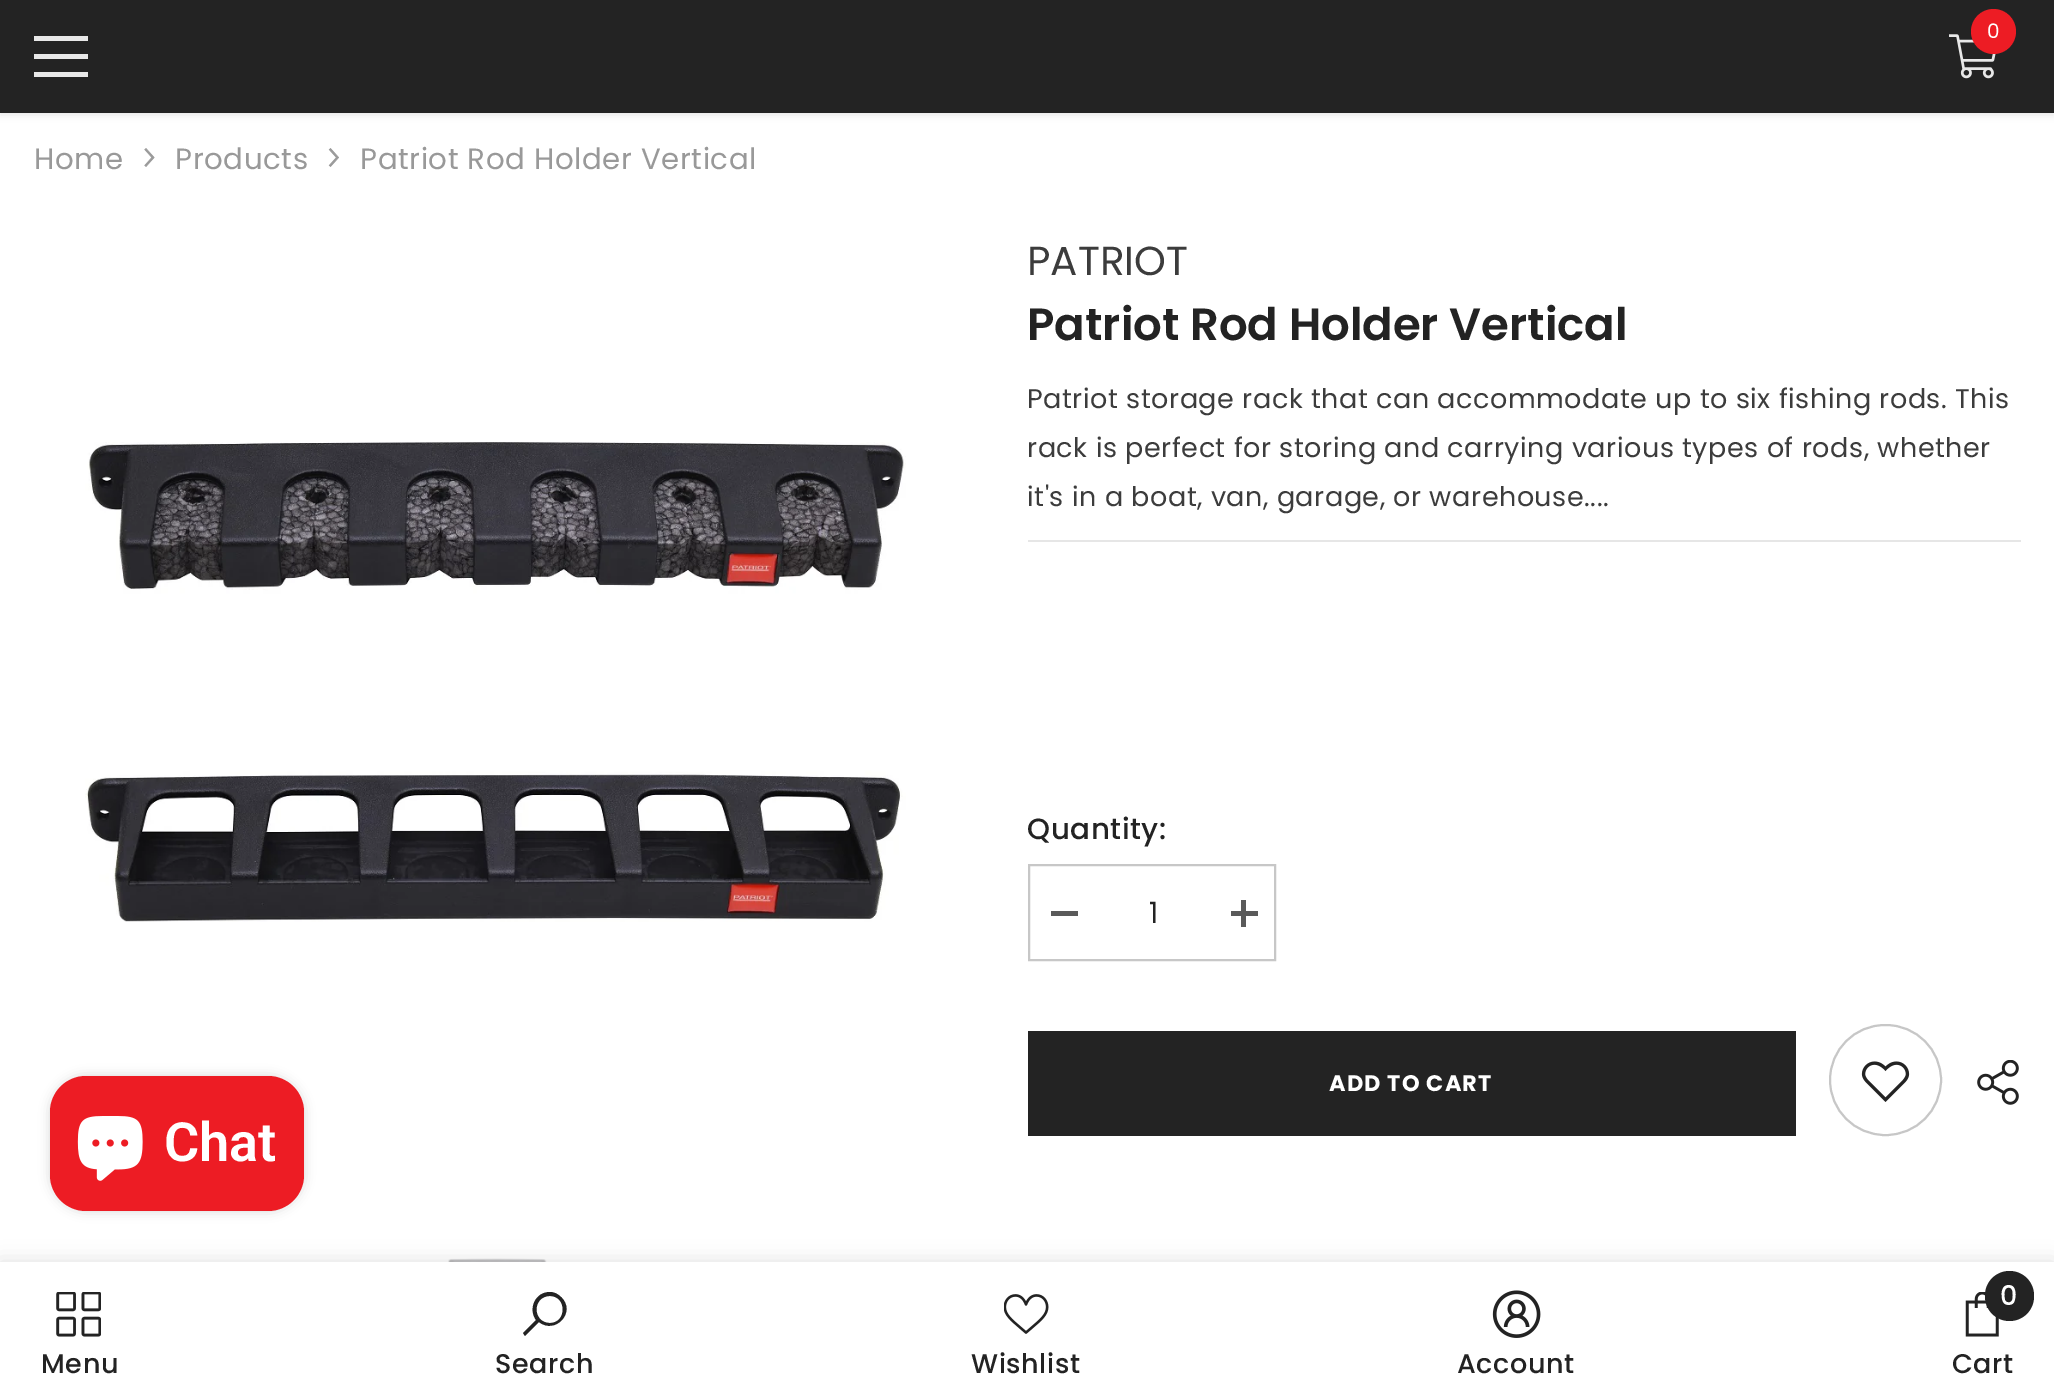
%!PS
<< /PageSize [2054 1400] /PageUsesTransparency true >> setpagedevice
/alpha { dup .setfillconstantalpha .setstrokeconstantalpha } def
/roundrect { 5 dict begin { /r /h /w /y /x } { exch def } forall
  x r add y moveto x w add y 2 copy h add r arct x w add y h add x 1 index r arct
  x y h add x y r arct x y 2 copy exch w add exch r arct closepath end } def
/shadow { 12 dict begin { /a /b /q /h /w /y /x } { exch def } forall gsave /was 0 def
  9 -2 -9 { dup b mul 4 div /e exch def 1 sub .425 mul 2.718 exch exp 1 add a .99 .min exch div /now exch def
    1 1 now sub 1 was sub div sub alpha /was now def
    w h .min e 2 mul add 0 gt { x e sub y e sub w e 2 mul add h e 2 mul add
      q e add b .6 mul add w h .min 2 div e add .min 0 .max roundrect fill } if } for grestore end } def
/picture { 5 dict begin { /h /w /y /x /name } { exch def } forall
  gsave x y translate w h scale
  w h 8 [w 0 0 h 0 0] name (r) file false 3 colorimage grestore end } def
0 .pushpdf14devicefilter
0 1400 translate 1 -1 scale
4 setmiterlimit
1 setgray
0 0 2054 1400 rectfill
0 setgray
0 2 2054 113 0 3.5 0.1 shadow
0.137 setgray
0 0 2054 113 rectfill
(img1.rgb) 1949 34 47 45 picture
0.929 0.11 0.141 setrgbcolor
newpath 1993.5 31.5 22.5 0 360 arc closepath fill
/Poppins-Regular [20 0 0 -20 0 0] selectfont
1 setgray
1987 38 moveto (0) show
0.91 setgray
34 54 54 5 rectfill
34 36 54 5 rectfill
34 72 54 5 rectfill
/Poppins-Regular [29.25 0 0 -29.25 0 0] selectfont
0.6 setgray
34 169 moveto 0.6 0 (Home) ashow
(img2.rgb) 144 148 11 19 picture
175 169 moveto 0.6 0 (Products) ashow
(img3.rgb) 328 148 11 19 picture
360 169 moveto 0.6 0 (Patriot Rod Holder Vertical) ashow
(img4.rgb) 85 442 821 480 picture
(img5.rgb) 448 1258 99 4 picture
/Poppins-Regular [40.5 0 0 -40.5 0 0] selectfont
0.235 setgray
1027 275 moveto (PATRIOT) show
/Poppins-SemiBold [45 0 0 -45 0 0] selectfont
0.137 setgray
1027 340 moveto (Patriot Rod Holder Vertical) show
/Poppins-Regular [27 0 0 -27 0 0] selectfont
0.235 setgray
1027 408 moveto 0.55 0 (Patriot storage rack that can accommodate up to six fishing rods. This) ashow
1027 457 moveto 0.55 0 (rack is perfect for storing and carrying various types of rods, whether) ashow
1027 506 moveto 0.55 0 (it's in a boat, van, garage, or warehouse....) ashow
0.902 setgray
1028 540 993 2 rectfill
/Poppins-Medium [29.25 0 0 -29.25 0 0] selectfont
0.137 setgray
1027 839 moveto 0.6 0 (Quantity:) ashow
0.78 setgray
2 setlinewidth
1029 865 246 95 rectstroke
0.353 setgray
1051 911 27 5 rectfill
/Poppins-Regular [29.25 0 0 -29.25 0 0] selectfont
0.137 setgray
1149 923 moveto 0.6 0 (1) ashow
0.353 setgray
1231 911 27 5 rectfill
1241 900 5 27 rectfill
0.137 setgray
1028 1031 768 105 rectfill
/Poppins-Bold [22.5 0 0 -22.5 0 0] selectfont
1 setgray
1329 1091 moveto 1.1 0 (ADD TO CART) ashow
0.78 setgray
1830 1025 111 110 55 roundrect stroke
(img6.rgb) 1861 1061 49 41 picture
(img7.rgb) 1977 1060 42 45 picture
0 setgray
0 1262 2054 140 0 10 0.12 shadow
1 setgray
0 1262 2054 138 rectfill
(img8.rgb) 56 1292 45 45 picture
/Poppins-Medium [27 0 0 -27 0 0] selectfont
0.137 setgray
41 1373 moveto 0.6 0 (Menu) ashow
newpath 550 1292 moveto 535 1292 528 1309 536 1320 curveto 523 1333 lineto 525 1336 lineto 539 1322 lineto 555 1335 577 1312 561 1297 curveto 558 1294 554 1292 550 1292 curveto closepath 550 1296 moveto 567 1296 567 1323 550 1323 curveto 532 1323 532 1296 550 1296 curveto closepath fill
495 1373 moveto 0.6 0 (Search) ashow
(img9.rgb) 1004 1294 45 40 picture
971 1373 moveto 0.6 0 (Wishlist) ashow
(img10.rgb) 1492 1290 49 48 picture
1457 1373 moveto 0.6 0 (Account) ashow
(img11.rgb) 1965 1292 34 45 picture
1985 1271 49 50 24.5 roundrect fill
1 setgray
2000 1305 moveto (0) show
0.137 setgray
1952 1373 moveto 0.6 0 (Cart) ashow
0 setgray
50 1076 254 135 36 5.5 0.15 shadow
0.929 0.11 0.141 setrgbcolor
50 1076 254 135 36 roundrect fill
(img12.rgb) 77 1116 66 65 picture
/Roboto-SemiBold [54 0 0 -54 0 0] selectfont
1 setgray
164 1161 moveto (Chat) show
.poppdf14devicefilter showpage
